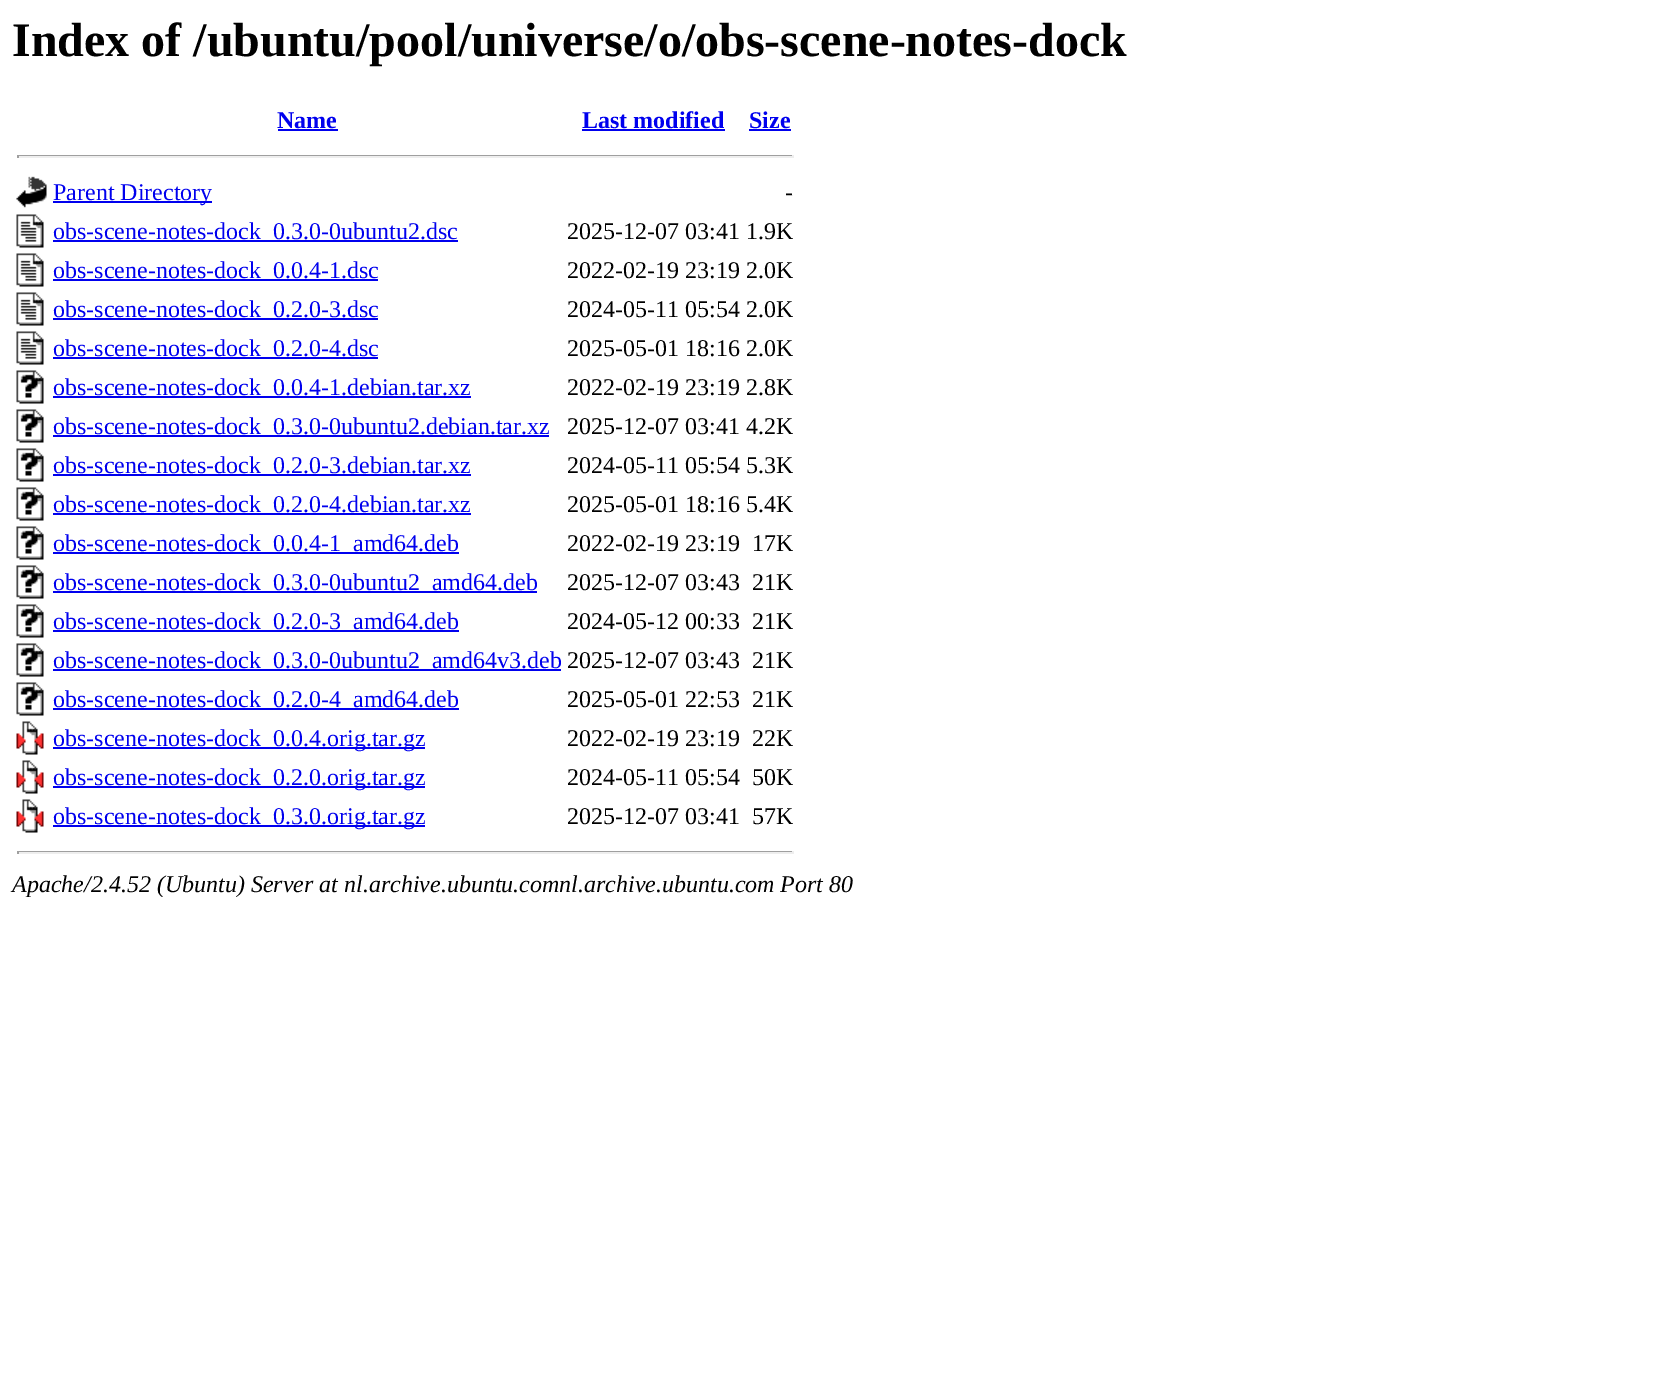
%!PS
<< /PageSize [1666 1379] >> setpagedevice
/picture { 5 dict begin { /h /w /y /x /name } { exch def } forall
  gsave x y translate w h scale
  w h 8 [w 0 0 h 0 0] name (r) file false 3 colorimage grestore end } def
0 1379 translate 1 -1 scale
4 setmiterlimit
1 setgray
0 0 1666 1379 rectfill
/LiberationSerif-Bold [48 0 0 -48 0 0] selectfont
0 setgray
12 56 moveto (Index of /ubuntu/pool/universe/o/obs-scene-notes-dock) show
/LiberationSerif-Bold [24 0 0 -24 0 0] selectfont
0 0 0.933 setrgbcolor
277 128 moveto (Name) show
278 129 60 2 rectfill
582 128 moveto (Last modified) show
582 129 143 2 rectfill
749 128 moveto (Size) show
749 129 42 2 rectfill
0.624 setgray
17 155 777 1 rectfill
0.933 setgray
792 155 2 3 rectfill
17 156 777 2 rectfill
0.624 setgray
17 155 2 3 rectfill
(img1.rgb) 16 176 31 32 picture
0 0 0.933 setrgbcolor
53 201 159 2 rectfill
/LiberationSerif-Regular [24 0 0 -24 0 0] selectfont
53 200 moveto (Parent Directory) show
0 setgray
785 200 moveto (-) show
(img2.rgb) 16 214 28 34 picture
0 0 0.933 setrgbcolor
53 240 405 2 rectfill
53 239 moveto (obs-scene-notes-dock_0.3.0-0ubuntu2.dsc) show
0 setgray
567 239 moveto (2025-12-07 03:41 1.9K) show
(img2.rgb) 16 253 28 34 picture
0 0 0.933 setrgbcolor
53 279 325 2 rectfill
53 278 moveto (obs-scene-notes-dock_0.0.4-1.dsc) show
0 setgray
567 278 moveto (2022-02-19 23:19 2.0K) show
(img2.rgb) 16 292 28 34 picture
0 0 0.933 setrgbcolor
53 318 325 2 rectfill
53 317 moveto (obs-scene-notes-dock_0.2.0-3.dsc) show
0 setgray
567 317 moveto (2024-05-11 05:54 2.0K) show
(img2.rgb) 16 331 28 34 picture
0 0 0.933 setrgbcolor
53 357 325 2 rectfill
53 356 moveto (obs-scene-notes-dock_0.2.0-4.dsc) show
0 setgray
567 356 moveto (2025-05-01 18:16 2.0K) show
(img3.rgb) 16 370 28 34 picture
0 0 0.933 setrgbcolor
53 396 418 2 rectfill
53 395 moveto (obs-scene-notes-dock_0.0.4-1.debian.tar.xz) show
0 setgray
567 395 moveto (2022-02-19 23:19 2.8K) show
(img3.rgb) 16 409 28 34 picture
0 0 0.933 setrgbcolor
53 435 496 2 rectfill
53 434 moveto (obs-scene-notes-dock_0.3.0-0ubuntu2.debian.tar.xz) show
0 setgray
567 434 moveto (2025-12-07 03:41 4.2K) show
(img3.rgb) 16 448 28 34 picture
0 0 0.933 setrgbcolor
53 474 418 2 rectfill
53 473 moveto (obs-scene-notes-dock_0.2.0-3.debian.tar.xz) show
0 setgray
567 473 moveto (2024-05-11 05:54 5.3K) show
(img3.rgb) 16 487 28 34 picture
0 0 0.933 setrgbcolor
53 513 418 2 rectfill
53 512 moveto (obs-scene-notes-dock_0.2.0-4.debian.tar.xz) show
0 setgray
567 512 moveto (2025-05-01 18:16 5.4K) show
(img3.rgb) 16 526 28 34 picture
0 0 0.933 setrgbcolor
53 552 406 2 rectfill
53 551 moveto (obs-scene-notes-dock_0.0.4-1_amd64.deb) show
0 setgray
567 551 moveto (2022-02-19 23:19) show
752 551 moveto (17K) show
(img3.rgb) 16 565 28 34 picture
0 0 0.933 setrgbcolor
53 591 484 2 rectfill
53 590 moveto (obs-scene-notes-dock_0.3.0-0ubuntu2_amd64.deb) show
0 setgray
567 590 moveto (2025-12-07 03:43) show
752 590 moveto (21K) show
(img3.rgb) 16 604 28 34 picture
0 0 0.933 setrgbcolor
53 630 406 2 rectfill
53 629 moveto (obs-scene-notes-dock_0.2.0-3_amd64.deb) show
0 setgray
567 629 moveto (2024-05-12 00:33) show
752 629 moveto (21K) show
(img3.rgb) 16 643 28 34 picture
0 0 0.933 setrgbcolor
53 669 508 2 rectfill
53 668 moveto (obs-scene-notes-dock_0.3.0-0ubuntu2_amd64v3.deb) show
0 setgray
567 668 moveto (2025-12-07 03:43) show
752 668 moveto (21K) show
(img3.rgb) 16 682 28 34 picture
0 0 0.933 setrgbcolor
53 708 406 2 rectfill
53 707 moveto (obs-scene-notes-dock_0.2.0-4_amd64.deb) show
0 setgray
567 707 moveto (2025-05-01 22:53) show
752 707 moveto (21K) show
(img4.rgb) 16 721 28 34 picture
0 0 0.933 setrgbcolor
53 747 372 2 rectfill
53 746 moveto (obs-scene-notes-dock_0.0.4.orig.tar.gz) show
0 setgray
567 746 moveto (2022-02-19 23:19) show
752 746 moveto (22K) show
(img4.rgb) 16 760 28 34 picture
0 0 0.933 setrgbcolor
53 786 372 2 rectfill
53 785 moveto (obs-scene-notes-dock_0.2.0.orig.tar.gz) show
0 setgray
567 785 moveto (2024-05-11 05:54) show
752 785 moveto (50K) show
(img4.rgb) 16 799 28 34 picture
0 0 0.933 setrgbcolor
53 825 372 2 rectfill
53 824 moveto (obs-scene-notes-dock_0.3.0.orig.tar.gz) show
0 setgray
567 824 moveto (2025-12-07 03:41) show
752 824 moveto (57K) show
0.624 setgray
17 851 777 1 rectfill
0.933 setgray
792 851 2 3 rectfill
17 852 777 2 rectfill
0.624 setgray
17 851 2 3 rectfill
/LiberationSerif-Italic [24 0 0 -24 0 0] selectfont
0 setgray
12 892 moveto (Apache/2.4.52 \(Ubuntu\) Server at nl.archive.ubuntu.comnl.archive.ubuntu.com Port 80) show
showpage
